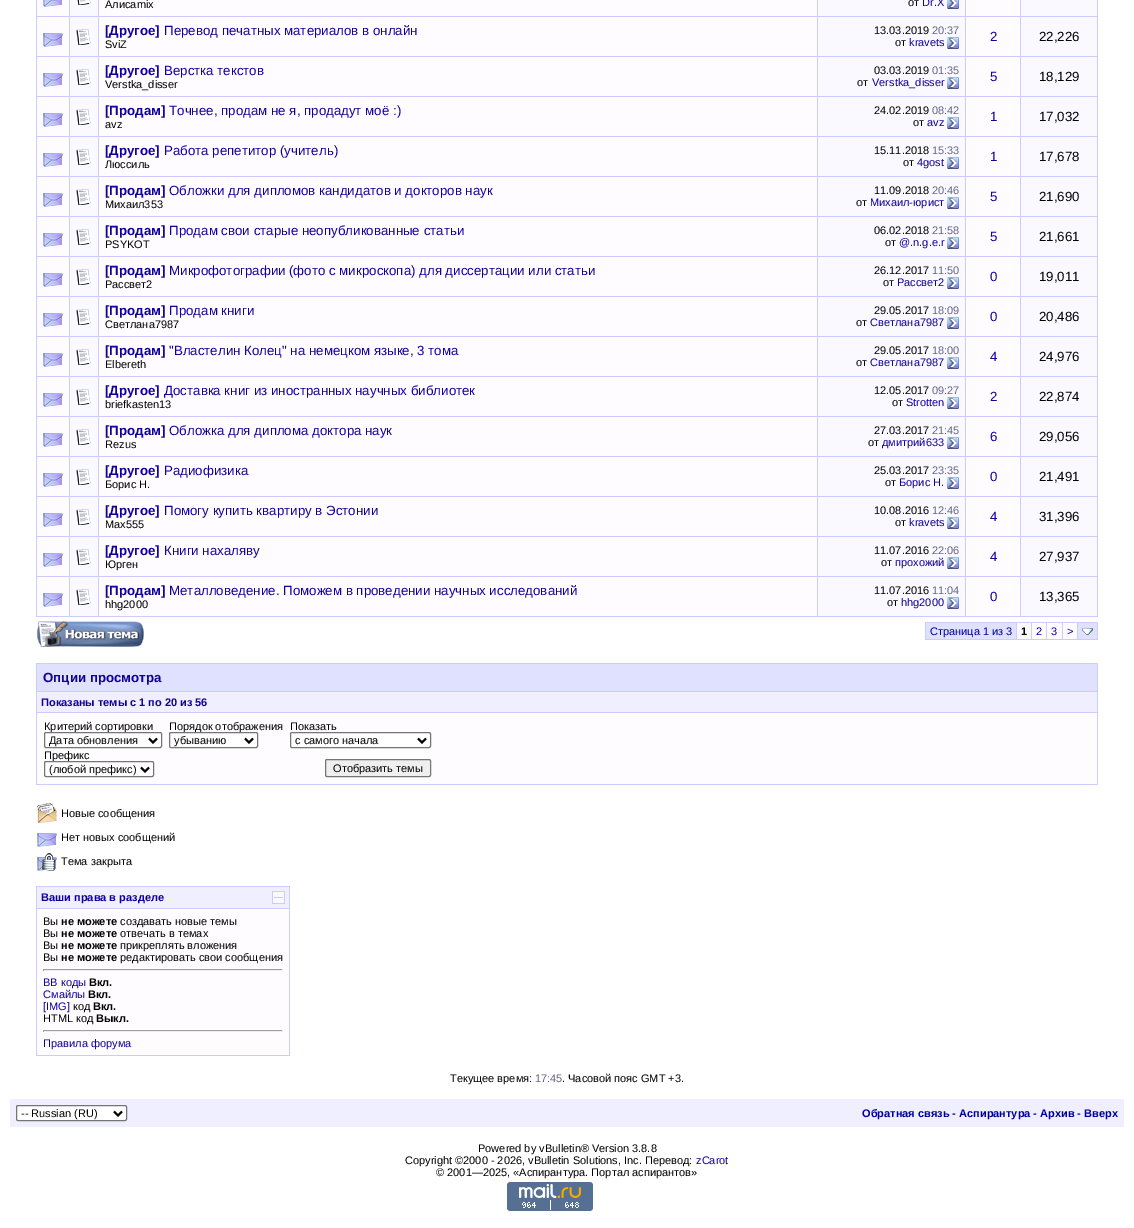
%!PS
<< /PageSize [1134 1228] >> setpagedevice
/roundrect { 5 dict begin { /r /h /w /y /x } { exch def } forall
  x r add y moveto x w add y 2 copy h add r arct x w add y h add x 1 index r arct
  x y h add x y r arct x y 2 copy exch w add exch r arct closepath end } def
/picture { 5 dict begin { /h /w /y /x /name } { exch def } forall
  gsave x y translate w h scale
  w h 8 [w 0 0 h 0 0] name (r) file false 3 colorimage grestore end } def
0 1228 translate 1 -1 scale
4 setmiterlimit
1 setgray
0 0 1134 1228 rectfill
0.8 0.8 1 setrgbcolor
36 0 1062 617 rectfill
0.996 0.988 1 setrgbcolor
37 0 32 16 rectfill
(img1.rgb) 43 0 20 7 picture
0.976 0.976 1 setrgbcolor
70 0 28 16 rectfill
(img2.rgb) 77 0 14 5 picture
0.996 0.988 1 setrgbcolor
99 0 718 16 rectfill
/LiberationSans-Regular [11 0 0 -11 0 0] selectfont
0 setgray
105 8 moveto (Алисаmix) show
0.976 0.976 1 setrgbcolor
818 0 147 16 rectfill
0 setgray
908 6 moveto (от) show
0.067 0 0.6 setrgbcolor
922 6 moveto (Dr.X) show
(img3.rgb) 947 0 12 9 picture
0.996 0.988 1 setrgbcolor
966 0 54 16 rectfill
0.976 0.976 1 setrgbcolor
1021 0 76 16 rectfill
0.996 0.988 1 setrgbcolor
37 17 32 39 rectfill
(img4.rgb) 43 33 20 14 picture
0.976 0.976 1 setrgbcolor
70 17 28 39 rectfill
(img5.rgb) 76 29 15 16 picture
0.996 0.988 1 setrgbcolor
99 17 718 39 rectfill
/LiberationSans-Bold [13.3 0 0 -13.3 0 0] selectfont
0.067 0 0.6 setrgbcolor
105 35 moveto ([Другое]) show
/LiberationSans-Regular [13.3 0 0 -13.3 0 0] selectfont
164 35 moveto (Перевод печатных материалов в онлайн) show
/LiberationSans-Regular [11 0 0 -11 0 0] selectfont
0 setgray
105 48 moveto (SviZ) show
0.976 0.976 1 setrgbcolor
818 17 147 39 rectfill
0 setgray
874 34 moveto (13.03.2019) show
0.4 0.4 0.525 setrgbcolor
932 34 moveto (20:37) show
0 setgray
895 46 moveto (от) show
0.067 0 0.6 setrgbcolor
909 46 moveto (kravets) show
(img6.rgb) 947 37 12 12 picture
0.996 0.988 1 setrgbcolor
966 17 54 39 rectfill
/LiberationSans-Regular [13.3 0 0 -13.3 0 0] selectfont
0.067 0 0.6 setrgbcolor
990 41 moveto (2) show
0.976 0.976 1 setrgbcolor
1021 17 76 39 rectfill
0 setgray
1039 41 moveto (22,226) show
0.996 0.988 1 setrgbcolor
37 57 32 39 rectfill
(img4.rgb) 43 73 20 14 picture
0.976 0.976 1 setrgbcolor
70 57 28 39 rectfill
(img5.rgb) 76 69 15 16 picture
0.996 0.988 1 setrgbcolor
99 57 718 39 rectfill
/LiberationSans-Bold [13.3 0 0 -13.3 0 0] selectfont
0.067 0 0.6 setrgbcolor
105 75 moveto ([Другое]) show
/LiberationSans-Regular [13.3 0 0 -13.3 0 0] selectfont
164 75 moveto (Верстка текстов) show
/LiberationSans-Regular [11 0 0 -11 0 0] selectfont
0 setgray
105 88 moveto (Verstka_disser) show
0.976 0.976 1 setrgbcolor
818 57 147 39 rectfill
0 setgray
874 74 moveto (03.03.2019) show
0.4 0.4 0.525 setrgbcolor
932 74 moveto (01:35) show
0 setgray
857 86 moveto (от) show
0.067 0 0.6 setrgbcolor
872 86 moveto (Verstka_disser) show
(img6.rgb) 947 77 12 12 picture
0.996 0.988 1 setrgbcolor
966 57 54 39 rectfill
/LiberationSans-Regular [13.3 0 0 -13.3 0 0] selectfont
0.067 0 0.6 setrgbcolor
990 81 moveto (5) show
0.976 0.976 1 setrgbcolor
1021 57 76 39 rectfill
0 setgray
1039 81 moveto (18,129) show
0.996 0.988 1 setrgbcolor
37 97 32 39 rectfill
(img4.rgb) 43 113 20 14 picture
0.976 0.976 1 setrgbcolor
70 97 28 39 rectfill
(img5.rgb) 76 109 15 16 picture
0.996 0.988 1 setrgbcolor
99 97 718 39 rectfill
/LiberationSans-Bold [13.3 0 0 -13.3 0 0] selectfont
0.067 0 0.6 setrgbcolor
105 115 moveto ([Продам]) show
/LiberationSans-Regular [13.3 0 0 -13.3 0 0] selectfont
169 115 moveto (Точнее, продам не я, продадут моё :\)) show
/LiberationSans-Regular [11 0 0 -11 0 0] selectfont
0 setgray
105 128 moveto (avz) show
0.976 0.976 1 setrgbcolor
818 97 147 39 rectfill
0 setgray
874 114 moveto (24.02.2019) show
0.4 0.4 0.525 setrgbcolor
932 114 moveto (08:42) show
0 setgray
913 126 moveto (от) show
0.067 0 0.6 setrgbcolor
927 126 moveto (avz) show
(img6.rgb) 947 117 12 12 picture
0.996 0.988 1 setrgbcolor
966 97 54 39 rectfill
/LiberationSans-Regular [13.3 0 0 -13.3 0 0] selectfont
0.067 0 0.6 setrgbcolor
990 121 moveto (1) show
0.976 0.976 1 setrgbcolor
1021 97 76 39 rectfill
0 setgray
1039 121 moveto (17,032) show
0.996 0.988 1 setrgbcolor
37 137 32 39 rectfill
(img4.rgb) 43 153 20 14 picture
0.976 0.976 1 setrgbcolor
70 137 28 39 rectfill
(img5.rgb) 76 149 15 16 picture
0.996 0.988 1 setrgbcolor
99 137 718 39 rectfill
/LiberationSans-Bold [13.3 0 0 -13.3 0 0] selectfont
0.067 0 0.6 setrgbcolor
105 155 moveto ([Другое]) show
/LiberationSans-Regular [13.3 0 0 -13.3 0 0] selectfont
164 155 moveto (Работа репетитор \(учитель\)) show
/LiberationSans-Regular [11 0 0 -11 0 0] selectfont
0 setgray
105 168 moveto (Люссиль) show
0.976 0.976 1 setrgbcolor
818 137 147 39 rectfill
0 setgray
874 154 moveto (15.11.2018) show
0.4 0.4 0.525 setrgbcolor
932 154 moveto (15:33) show
0 setgray
903 166 moveto (от) show
0.067 0 0.6 setrgbcolor
917 166 moveto (4gost) show
(img6.rgb) 947 157 12 12 picture
0.996 0.988 1 setrgbcolor
966 137 54 39 rectfill
/LiberationSans-Regular [13.3 0 0 -13.3 0 0] selectfont
0.067 0 0.6 setrgbcolor
990 161 moveto (1) show
0.976 0.976 1 setrgbcolor
1021 137 76 39 rectfill
0 setgray
1039 161 moveto (17,678) show
0.996 0.988 1 setrgbcolor
37 177 32 39 rectfill
(img4.rgb) 43 193 20 14 picture
0.976 0.976 1 setrgbcolor
70 177 28 39 rectfill
(img5.rgb) 76 189 15 16 picture
0.996 0.988 1 setrgbcolor
99 177 718 39 rectfill
/LiberationSans-Bold [13.3 0 0 -13.3 0 0] selectfont
0.067 0 0.6 setrgbcolor
105 195 moveto ([Продам]) show
/LiberationSans-Regular [13.3 0 0 -13.3 0 0] selectfont
169 195 moveto (Обложки для дипломов кандидатов и докторов наук) show
/LiberationSans-Regular [11 0 0 -11 0 0] selectfont
0 setgray
105 208 moveto (Михаил353) show
0.976 0.976 1 setrgbcolor
818 177 147 39 rectfill
0 setgray
874 194 moveto (11.09.2018) show
0.4 0.4 0.525 setrgbcolor
932 194 moveto (20:46) show
0 setgray
856 206 moveto (от) show
0.067 0 0.6 setrgbcolor
870 206 moveto (Михаил-юрист) show
(img6.rgb) 947 197 12 12 picture
0.996 0.988 1 setrgbcolor
966 177 54 39 rectfill
/LiberationSans-Regular [13.3 0 0 -13.3 0 0] selectfont
0.067 0 0.6 setrgbcolor
990 201 moveto (5) show
0.976 0.976 1 setrgbcolor
1021 177 76 39 rectfill
0 setgray
1039 201 moveto (21,690) show
0.996 0.988 1 setrgbcolor
37 217 32 39 rectfill
(img4.rgb) 43 233 20 14 picture
0.976 0.976 1 setrgbcolor
70 217 28 39 rectfill
(img5.rgb) 76 229 15 16 picture
0.996 0.988 1 setrgbcolor
99 217 718 39 rectfill
/LiberationSans-Bold [13.3 0 0 -13.3 0 0] selectfont
0.067 0 0.6 setrgbcolor
105 235 moveto ([Продам]) show
/LiberationSans-Regular [13.3 0 0 -13.3 0 0] selectfont
169 235 moveto (Продам свои старые неопубликованные статьи) show
/LiberationSans-Regular [11 0 0 -11 0 0] selectfont
0 setgray
105 248 moveto (PSYKOT) show
0.976 0.976 1 setrgbcolor
818 217 147 39 rectfill
0 setgray
874 234 moveto (06.02.2018) show
0.4 0.4 0.525 setrgbcolor
932 234 moveto (21:58) show
0 setgray
885 246 moveto (от) show
0.067 0 0.6 setrgbcolor
899 246 moveto (@.n.g.e.r) show
(img6.rgb) 947 237 12 12 picture
0.996 0.988 1 setrgbcolor
966 217 54 39 rectfill
/LiberationSans-Regular [13.3 0 0 -13.3 0 0] selectfont
0.067 0 0.6 setrgbcolor
990 241 moveto (5) show
0.976 0.976 1 setrgbcolor
1021 217 76 39 rectfill
0 setgray
1039 241 moveto (21,661) show
0.996 0.988 1 setrgbcolor
37 257 32 39 rectfill
(img4.rgb) 43 273 20 14 picture
0.976 0.976 1 setrgbcolor
70 257 28 39 rectfill
(img5.rgb) 76 269 15 16 picture
0.996 0.988 1 setrgbcolor
99 257 718 39 rectfill
/LiberationSans-Bold [13.3 0 0 -13.3 0 0] selectfont
0.067 0 0.6 setrgbcolor
105 275 moveto ([Продам]) show
/LiberationSans-Regular [13.3 0 0 -13.3 0 0] selectfont
169 275 moveto (Микрофотографии \(фото с микроскопа\) для диссертации или статьи) show
/LiberationSans-Regular [11 0 0 -11 0 0] selectfont
0 setgray
105 288 moveto (Рассвет2) show
0.976 0.976 1 setrgbcolor
818 257 147 39 rectfill
0 setgray
874 274 moveto (26.12.2017) show
0.4 0.4 0.525 setrgbcolor
932 274 moveto (11:50) show
0 setgray
883 286 moveto (от) show
0.067 0 0.6 setrgbcolor
897 286 moveto (Рассвет2) show
(img6.rgb) 947 277 12 12 picture
0.996 0.988 1 setrgbcolor
966 257 54 39 rectfill
/LiberationSans-Regular [13.3 0 0 -13.3 0 0] selectfont
0.067 0 0.6 setrgbcolor
990 281 moveto (0) show
0.976 0.976 1 setrgbcolor
1021 257 76 39 rectfill
0 setgray
1039 281 moveto (19,011) show
0.996 0.988 1 setrgbcolor
37 297 32 39 rectfill
(img4.rgb) 43 313 20 14 picture
0.976 0.976 1 setrgbcolor
70 297 28 39 rectfill
(img5.rgb) 76 309 15 16 picture
0.996 0.988 1 setrgbcolor
99 297 718 39 rectfill
/LiberationSans-Bold [13.3 0 0 -13.3 0 0] selectfont
0.067 0 0.6 setrgbcolor
105 315 moveto ([Продам]) show
/LiberationSans-Regular [13.3 0 0 -13.3 0 0] selectfont
169 315 moveto (Продам книги) show
/LiberationSans-Regular [11 0 0 -11 0 0] selectfont
0 setgray
105 328 moveto (Светлана7987) show
0.976 0.976 1 setrgbcolor
818 297 147 39 rectfill
0 setgray
874 314 moveto (29.05.2017) show
0.4 0.4 0.525 setrgbcolor
932 314 moveto (18:09) show
0 setgray
856 326 moveto (от) show
0.067 0 0.6 setrgbcolor
870 326 moveto (Светлана7987) show
(img6.rgb) 947 317 12 12 picture
0.996 0.988 1 setrgbcolor
966 297 54 39 rectfill
/LiberationSans-Regular [13.3 0 0 -13.3 0 0] selectfont
0.067 0 0.6 setrgbcolor
990 321 moveto (0) show
0.976 0.976 1 setrgbcolor
1021 297 76 39 rectfill
0 setgray
1039 321 moveto (20,486) show
0.996 0.988 1 setrgbcolor
37 337 32 39 rectfill
(img4.rgb) 43 353 20 14 picture
0.976 0.976 1 setrgbcolor
70 337 28 39 rectfill
(img5.rgb) 76 349 15 16 picture
0.996 0.988 1 setrgbcolor
99 337 718 39 rectfill
/LiberationSans-Bold [13.3 0 0 -13.3 0 0] selectfont
0.067 0 0.6 setrgbcolor
105 355 moveto ([Продам]) show
/LiberationSans-Regular [13.3 0 0 -13.3 0 0] selectfont
169 355 moveto ("Властелин Колец" на немецком языке, 3 тома) show
/LiberationSans-Regular [11 0 0 -11 0 0] selectfont
0 setgray
105 368 moveto (Elbereth) show
0.976 0.976 1 setrgbcolor
818 337 147 39 rectfill
0 setgray
874 354 moveto (29.05.2017) show
0.4 0.4 0.525 setrgbcolor
932 354 moveto (18:00) show
0 setgray
856 366 moveto (от) show
0.067 0 0.6 setrgbcolor
870 366 moveto (Светлана7987) show
(img6.rgb) 947 357 12 12 picture
0.996 0.988 1 setrgbcolor
966 337 54 39 rectfill
/LiberationSans-Regular [13.3 0 0 -13.3 0 0] selectfont
0.067 0 0.6 setrgbcolor
990 361 moveto (4) show
0.976 0.976 1 setrgbcolor
1021 337 76 39 rectfill
0 setgray
1039 361 moveto (24,976) show
0.996 0.988 1 setrgbcolor
37 377 32 39 rectfill
(img4.rgb) 43 393 20 14 picture
0.976 0.976 1 setrgbcolor
70 377 28 39 rectfill
(img5.rgb) 76 389 15 16 picture
0.996 0.988 1 setrgbcolor
99 377 718 39 rectfill
/LiberationSans-Bold [13.3 0 0 -13.3 0 0] selectfont
0.067 0 0.6 setrgbcolor
105 395 moveto ([Другое]) show
/LiberationSans-Regular [13.3 0 0 -13.3 0 0] selectfont
164 395 moveto (Доставка книг из иностранных научных библиотек) show
/LiberationSans-Regular [11 0 0 -11 0 0] selectfont
0 setgray
105 408 moveto (briefkasten13) show
0.976 0.976 1 setrgbcolor
818 377 147 39 rectfill
0 setgray
874 394 moveto (12.05.2017) show
0.4 0.4 0.525 setrgbcolor
932 394 moveto (09:27) show
0 setgray
892 406 moveto (от) show
0.067 0 0.6 setrgbcolor
906 406 moveto (Strotten) show
(img6.rgb) 947 397 12 12 picture
0.996 0.988 1 setrgbcolor
966 377 54 39 rectfill
/LiberationSans-Regular [13.3 0 0 -13.3 0 0] selectfont
0.067 0 0.6 setrgbcolor
990 401 moveto (2) show
0.976 0.976 1 setrgbcolor
1021 377 76 39 rectfill
0 setgray
1039 401 moveto (22,874) show
0.996 0.988 1 setrgbcolor
37 417 32 39 rectfill
(img4.rgb) 43 433 20 14 picture
0.976 0.976 1 setrgbcolor
70 417 28 39 rectfill
(img5.rgb) 76 429 15 16 picture
0.996 0.988 1 setrgbcolor
99 417 718 39 rectfill
/LiberationSans-Bold [13.3 0 0 -13.3 0 0] selectfont
0.067 0 0.6 setrgbcolor
105 435 moveto ([Продам]) show
/LiberationSans-Regular [13.3 0 0 -13.3 0 0] selectfont
169 435 moveto (Обложка для диплома доктора наук) show
/LiberationSans-Regular [11 0 0 -11 0 0] selectfont
0 setgray
105 448 moveto (Rezus) show
0.976 0.976 1 setrgbcolor
818 417 147 39 rectfill
0 setgray
874 434 moveto (27.03.2017) show
0.4 0.4 0.525 setrgbcolor
932 434 moveto (21:45) show
0 setgray
868 446 moveto (от) show
0.067 0 0.6 setrgbcolor
882 446 moveto (дмитрий633) show
(img6.rgb) 947 437 12 12 picture
0.996 0.988 1 setrgbcolor
966 417 54 39 rectfill
/LiberationSans-Regular [13.3 0 0 -13.3 0 0] selectfont
0.067 0 0.6 setrgbcolor
990 441 moveto (6) show
0.976 0.976 1 setrgbcolor
1021 417 76 39 rectfill
0 setgray
1039 441 moveto (29,056) show
0.996 0.988 1 setrgbcolor
37 457 32 39 rectfill
(img4.rgb) 43 473 20 14 picture
0.976 0.976 1 setrgbcolor
70 457 28 39 rectfill
(img5.rgb) 76 469 15 16 picture
0.996 0.988 1 setrgbcolor
99 457 718 39 rectfill
/LiberationSans-Bold [13.3 0 0 -13.3 0 0] selectfont
0.067 0 0.6 setrgbcolor
105 475 moveto ([Другое]) show
/LiberationSans-Regular [13.3 0 0 -13.3 0 0] selectfont
164 475 moveto (Радиофизика) show
/LiberationSans-Regular [11 0 0 -11 0 0] selectfont
0 setgray
105 488 moveto (Борис Н.) show
0.976 0.976 1 setrgbcolor
818 457 147 39 rectfill
0 setgray
874 474 moveto (25.03.2017) show
0.4 0.4 0.525 setrgbcolor
932 474 moveto (23:35) show
0 setgray
885 486 moveto (от) show
0.067 0 0.6 setrgbcolor
899 486 moveto (Борис Н.) show
(img6.rgb) 947 477 12 12 picture
0.996 0.988 1 setrgbcolor
966 457 54 39 rectfill
/LiberationSans-Regular [13.3 0 0 -13.3 0 0] selectfont
0.067 0 0.6 setrgbcolor
990 481 moveto (0) show
0.976 0.976 1 setrgbcolor
1021 457 76 39 rectfill
0 setgray
1039 481 moveto (21,491) show
0.996 0.988 1 setrgbcolor
37 497 32 39 rectfill
(img4.rgb) 43 513 20 14 picture
0.976 0.976 1 setrgbcolor
70 497 28 39 rectfill
(img5.rgb) 76 509 15 16 picture
0.996 0.988 1 setrgbcolor
99 497 718 39 rectfill
/LiberationSans-Bold [13.3 0 0 -13.3 0 0] selectfont
0.067 0 0.6 setrgbcolor
105 515 moveto ([Другое]) show
/LiberationSans-Regular [13.3 0 0 -13.3 0 0] selectfont
164 515 moveto (Помогу купить квартиру в Эстонии) show
/LiberationSans-Regular [11 0 0 -11 0 0] selectfont
0 setgray
105 528 moveto (Max555) show
0.976 0.976 1 setrgbcolor
818 497 147 39 rectfill
0 setgray
874 514 moveto (10.08.2016) show
0.4 0.4 0.525 setrgbcolor
932 514 moveto (12:46) show
0 setgray
895 526 moveto (от) show
0.067 0 0.6 setrgbcolor
909 526 moveto (kravets) show
(img6.rgb) 947 517 12 12 picture
0.996 0.988 1 setrgbcolor
966 497 54 39 rectfill
/LiberationSans-Regular [13.3 0 0 -13.3 0 0] selectfont
0.067 0 0.6 setrgbcolor
990 521 moveto (4) show
0.976 0.976 1 setrgbcolor
1021 497 76 39 rectfill
0 setgray
1039 521 moveto (31,396) show
0.996 0.988 1 setrgbcolor
37 537 32 39 rectfill
(img4.rgb) 43 553 20 14 picture
0.976 0.976 1 setrgbcolor
70 537 28 39 rectfill
(img5.rgb) 76 549 15 16 picture
0.996 0.988 1 setrgbcolor
99 537 718 39 rectfill
/LiberationSans-Bold [13.3 0 0 -13.3 0 0] selectfont
0.067 0 0.6 setrgbcolor
105 555 moveto ([Другое]) show
/LiberationSans-Regular [13.3 0 0 -13.3 0 0] selectfont
164 555 moveto (Книги нахаляву) show
/LiberationSans-Regular [11 0 0 -11 0 0] selectfont
0 setgray
105 568 moveto (Юрген) show
0.976 0.976 1 setrgbcolor
818 537 147 39 rectfill
0 setgray
874 554 moveto (11.07.2016) show
0.4 0.4 0.525 setrgbcolor
932 554 moveto (22:06) show
0 setgray
881 566 moveto (от) show
0.067 0 0.6 setrgbcolor
895 566 moveto (прохожий) show
(img6.rgb) 947 557 12 12 picture
0.996 0.988 1 setrgbcolor
966 537 54 39 rectfill
/LiberationSans-Regular [13.3 0 0 -13.3 0 0] selectfont
0.067 0 0.6 setrgbcolor
990 561 moveto (4) show
0.976 0.976 1 setrgbcolor
1021 537 76 39 rectfill
0 setgray
1039 561 moveto (27,937) show
0.996 0.988 1 setrgbcolor
37 577 32 39 rectfill
(img4.rgb) 43 593 20 14 picture
0.976 0.976 1 setrgbcolor
70 577 28 39 rectfill
(img5.rgb) 76 589 15 16 picture
0.996 0.988 1 setrgbcolor
99 577 718 39 rectfill
/LiberationSans-Bold [13.3 0 0 -13.3 0 0] selectfont
0.067 0 0.6 setrgbcolor
105 595 moveto ([Продам]) show
/LiberationSans-Regular [13.3 0 0 -13.3 0 0] selectfont
169 595 moveto (Металловедение. Поможем в проведении научных исследований) show
/LiberationSans-Regular [11 0 0 -11 0 0] selectfont
0 setgray
105 608 moveto (hhg2000) show
0.976 0.976 1 setrgbcolor
818 577 147 39 rectfill
0 setgray
874 594 moveto (11.07.2016) show
0.4 0.4 0.525 setrgbcolor
932 594 moveto (11:04) show
0 setgray
887 606 moveto (от) show
0.067 0 0.6 setrgbcolor
901 606 moveto (hhg2000) show
(img6.rgb) 947 597 12 12 picture
0.996 0.988 1 setrgbcolor
966 577 54 39 rectfill
/LiberationSans-Regular [13.3 0 0 -13.3 0 0] selectfont
0.067 0 0.6 setrgbcolor
990 601 moveto (0) show
0.976 0.976 1 setrgbcolor
1021 577 76 39 rectfill
0 setgray
1039 601 moveto (13,365) show
(img7.rgb) 37 621 107 26 picture
0.8 0.8 1 setrgbcolor
925 622 173 18 rectfill
0.878 0.878 1 setrgbcolor
926 623 90 16 rectfill
/LiberationSans-Regular [11 0 0 -11 0 0] selectfont
0 0 0.6 setrgbcolor
930 635 moveto (Страница 1 из 3) show
0.976 0.976 1 setrgbcolor
1017 623 14 16 rectfill
/LiberationSans-Bold [11 0 0 -11 0 0] selectfont
0 setgray
1021 635 moveto (1) show
0.996 0.988 1 setrgbcolor
1032 623 14 16 rectfill
/LiberationSans-Regular [11 0 0 -11 0 0] selectfont
0.067 0 0.6 setrgbcolor
1036 635 moveto (2) show
0.996 0.988 1 setrgbcolor
1047 623 15 16 rectfill
0.067 0 0.6 setrgbcolor
1051 635 moveto (3) show
0.996 0.988 1 setrgbcolor
1063 623 14 16 rectfill
0.067 0 0.6 setrgbcolor
1067 635 moveto (>) show
0.878 0.878 1 setrgbcolor
1078 623 19 16 rectfill
(img8.rgb) 1082 628 11 7 picture
0.8 0.8 1 setrgbcolor
36 663 1062 122 rectfill
0.878 0.878 1 setrgbcolor
37 664 1060 27 rectfill
/LiberationSans-Bold [13.3 0 0 -13.3 0 0] selectfont
0.067 0 0.6 setrgbcolor
43 682 moveto (Опции просмотра) show
0.937 0.937 1 setrgbcolor
37 692 1060 20 rectfill
/LiberationSans-Bold [11 0 0 -11 0 0] selectfont
0.067 0 0.6 setrgbcolor
41 706 moveto (Показаны темы с 1 по 20 из 56) show
0.996 0.988 1 setrgbcolor
37 713 1060 71 rectfill
/LiberationSans-Regular [11 0 0 -11 0 0] selectfont
0 setgray
44 730 moveto (Критерий сортировки) show
1 setgray
44.5 732.5 117 15 1.5 roundrect gsave fill grestore
0.463 setgray
stroke
0 setgray
2 setlinewidth
newpath 149 738.5 moveto 153 742.5 lineto 157 738.5 lineto stroke
49 744 moveto (Дата обновления) show
169 730 moveto (Порядок отображения) show
1 setgray
169.5 732.5 88 15 1.5 roundrect gsave fill grestore
0.463 setgray
1 setlinewidth
stroke
0 setgray
2 setlinewidth
newpath 245 738.5 moveto 249 742.5 lineto 253 738.5 lineto stroke
174 744 moveto (убыванию) show
290 730 moveto (Показать) show
1 setgray
290.5 732.5 140 15 1.5 roundrect gsave fill grestore
0.463 setgray
1 setlinewidth
stroke
0 setgray
2 setlinewidth
newpath 418 738.5 moveto 422 742.5 lineto 426 738.5 lineto stroke
295 744 moveto (с самого начала) show
44 759 moveto (Префикс) show
1 setgray
44.5 761.5 109 15 1.5 roundrect gsave fill grestore
0.463 setgray
1 setlinewidth
stroke
0 setgray
2 setlinewidth
newpath 141 767.5 moveto 145 771.5 lineto 149 767.5 lineto stroke
49 773 moveto (\(любой префикс\)) show
0.937 setgray
325.5 759.5 105 17 1.5 roundrect gsave fill grestore
0.463 setgray
1 setlinewidth
stroke
0 setgray
333 772 moveto (Отобразить темы) show
(img9.rgb) 37 803 20 20 picture
61 817 moveto (Новые сообщения) show
(img10.rgb) 37 833 20 14 picture
61 841 moveto (Нет новых сообщений) show
(img11.rgb) 37 853 20 18 picture
61 865 moveto (Тема закрыта) show
0.8 0.8 1 setrgbcolor
36 886 254 170 rectfill
0.937 0.937 1 setrgbcolor
37 887 252 21 rectfill
/LiberationSans-Bold [11 0 0 -11 0 0] selectfont
0.067 0 0.6 setrgbcolor
41 901 moveto (Ваши права в разделе) show
(img12.rgb) 272 891 13 13 picture
0.996 0.988 1 setrgbcolor
37 909 252 146 rectfill
/LiberationSans-Regular [11 0 0 -11 0 0] selectfont
0 setgray
43 925 moveto (Вы) show
/LiberationSans-Bold [11 0 0 -11 0 0] selectfont
61 925 moveto (не можете) show
/LiberationSans-Regular [11 0 0 -11 0 0] selectfont
120 925 moveto (создавать новые темы) show
43 937 moveto (Вы) show
/LiberationSans-Bold [11 0 0 -11 0 0] selectfont
61 937 moveto (не можете) show
/LiberationSans-Regular [11 0 0 -11 0 0] selectfont
120 937 moveto (отвечать в темах) show
43 949 moveto (Вы) show
/LiberationSans-Bold [11 0 0 -11 0 0] selectfont
61 949 moveto (не можете) show
/LiberationSans-Regular [11 0 0 -11 0 0] selectfont
120 949 moveto (прикреплять вложения) show
43 961 moveto (Вы) show
/LiberationSans-Bold [11 0 0 -11 0 0] selectfont
61 961 moveto (не можете) show
/LiberationSans-Regular [11 0 0 -11 0 0] selectfont
120 961 moveto (редактировать свои сообщения) show
0.624 setgray
43 969 240 1 rectfill
0.933 setgray
282 969 1 2 rectfill
43 970 240 1 rectfill
0.624 setgray
43 969 1 2 rectfill
0.067 0 0.6 setrgbcolor
43 986 moveto (BB коды) show
/LiberationSans-Bold [11 0 0 -11 0 0] selectfont
0 setgray
89 986 moveto (Вкл.) show
/LiberationSans-Regular [11 0 0 -11 0 0] selectfont
0.067 0 0.6 setrgbcolor
43 998 moveto (Смайлы) show
/LiberationSans-Bold [11 0 0 -11 0 0] selectfont
0 setgray
88 998 moveto (Вкл.) show
/LiberationSans-Regular [11 0 0 -11 0 0] selectfont
0.067 0 0.6 setrgbcolor
43 1010 moveto ([IMG]) show
0 setgray
73 1010 moveto (код) show
/LiberationSans-Bold [11 0 0 -11 0 0] selectfont
93 1010 moveto (Вкл.) show
/LiberationSans-Regular [11 0 0 -11 0 0] selectfont
43 1022 moveto (HTML код) show
/LiberationSans-Bold [11 0 0 -11 0 0] selectfont
96 1022 moveto (Выкл.) show
0.624 setgray
43 1030 240 1 rectfill
0.933 setgray
282 1030 1 2 rectfill
43 1031 240 1 rectfill
0.624 setgray
43 1030 1 2 rectfill
/LiberationSans-Regular [11 0 0 -11 0 0] selectfont
0.067 0 0.6 setrgbcolor
43 1047 moveto (Правила форума) show
0 setgray
450 1082 moveto (Текущее время:) show
0.4 0.4 0.525 setrgbcolor
535 1082 moveto (17:45) show
0 setgray
562 1082 moveto (. Часовой пояс GMT +3.) show
0.937 0.937 1 setrgbcolor
10 1099 1114 28 rectfill
1 setgray
16.5 1105.5 110 15 1.5 roundrect gsave fill grestore
0.463 setgray
stroke
0 setgray
2 setlinewidth
newpath 114 1111.5 moveto 118 1115.5 lineto 122 1111.5 lineto stroke
21 1117 moveto (-- Russian \(RU\)) show
/LiberationSans-Bold [11 0 0 -11 0 0] selectfont
0 0 0.6 setrgbcolor
862 1117 moveto (Обратная связь - Аспирантура - Архив - Вверх) show
/LiberationSans-Regular [11 0 0 -11 0 0] selectfont
0 setgray
478 1152 moveto (Powered by vBulletin® Version 3.8.8) show
405 1164 moveto (Copyright ©2000 - 2026, vBulletin Solutions, Inc. Перевод:) show
0.067 0 0.6 setrgbcolor
696 1164 moveto (zCarot) show
0 setgray
436 1176 moveto (© 2001—2025, «Аспирантура. Портал аспирантов») show
(img13.rgb) 507 1182 86 29 picture
showpage
